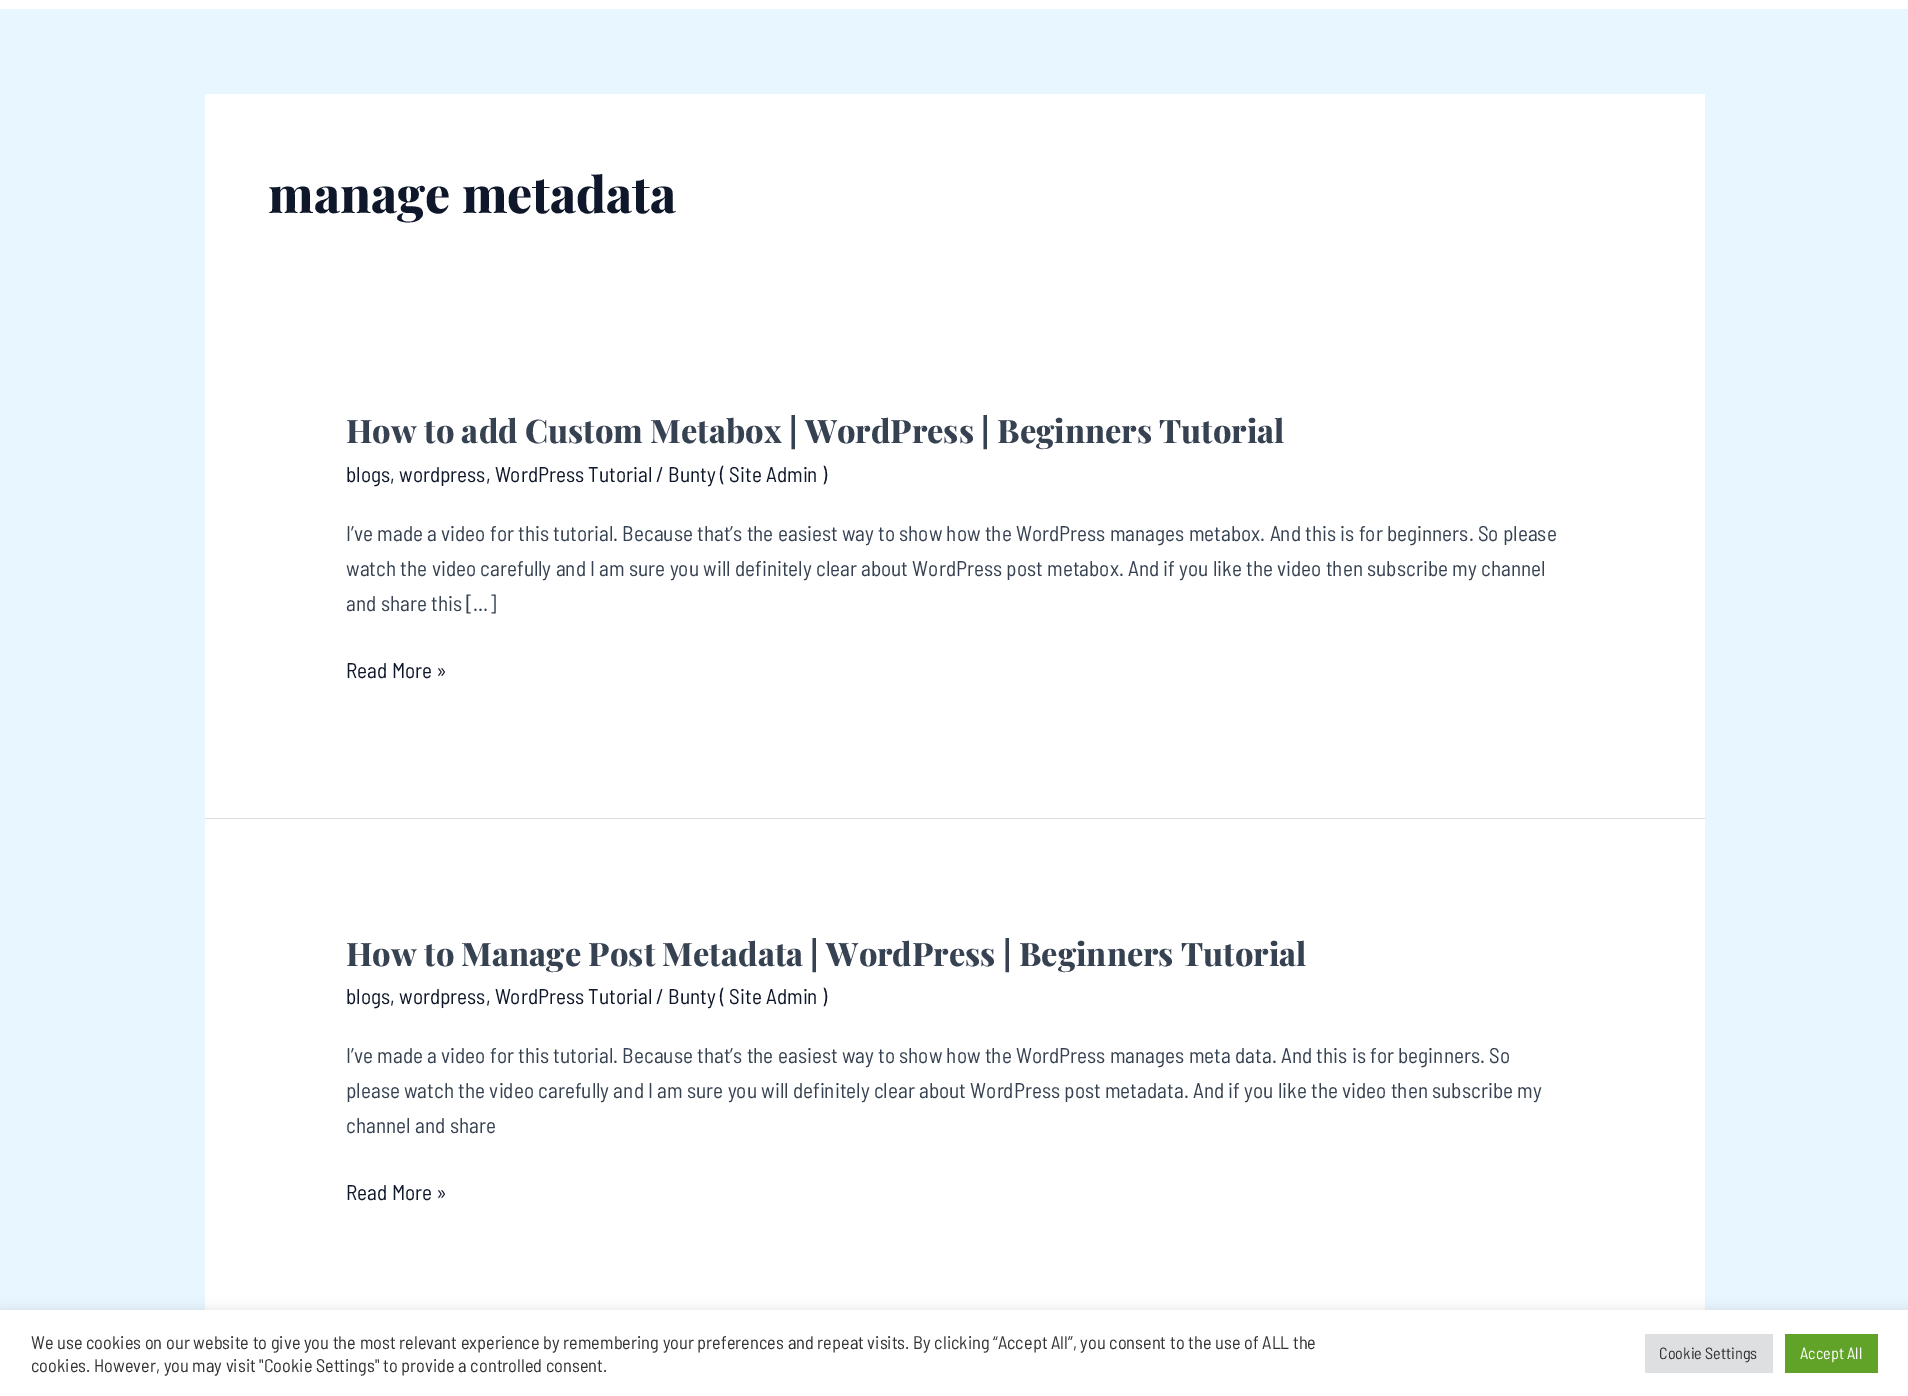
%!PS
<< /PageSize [1908 1396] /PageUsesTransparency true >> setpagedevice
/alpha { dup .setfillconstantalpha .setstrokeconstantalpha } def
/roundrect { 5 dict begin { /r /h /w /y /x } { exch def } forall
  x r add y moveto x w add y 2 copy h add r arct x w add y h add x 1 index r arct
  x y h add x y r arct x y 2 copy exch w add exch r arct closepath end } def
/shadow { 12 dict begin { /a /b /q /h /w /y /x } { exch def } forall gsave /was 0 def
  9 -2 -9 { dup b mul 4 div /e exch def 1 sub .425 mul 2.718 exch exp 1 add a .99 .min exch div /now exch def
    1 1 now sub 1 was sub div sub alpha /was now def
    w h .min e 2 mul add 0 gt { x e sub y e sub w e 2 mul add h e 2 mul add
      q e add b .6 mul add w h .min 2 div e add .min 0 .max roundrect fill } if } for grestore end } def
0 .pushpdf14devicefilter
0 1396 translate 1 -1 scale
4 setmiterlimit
0.906 0.965 1 setrgbcolor
0 0 1908 1396 rectfill
1 setgray
0 0 1908 9 rectfill
205 94 1500 724 rectfill
/PlayfairDisplay-ExtraBold [50 0 0 -50 0 0] selectfont
0.059 0.09 0.165 setrgbcolor
268 213 moveto (manage metadata) show
0.867 setgray
205 818 1500 1 rectfill
/PlayfairDisplay-ExtraBold [32.5 0 0 -32.5 0 0] selectfont
0.212 0.255 0.318 setrgbcolor
346 443 moveto (How to add Custom Metabox | WordPress | Beginners Tutorial) show
/BarlowSemiCondensed-Regular [21.25 0 0 -21.25 0 0] selectfont
0.059 0.09 0.165 setrgbcolor
346 482 moveto (blogs, wordpress, WordPress Tutorial / Bunty \( Site Admin \)) show
0.212 0.255 0.318 setrgbcolor
346 541 moveto (I’ve made a video for this tutorial. Because that’s the easiest way to show how the WordPress manages metabox. And this is for beginners. So please) show
346 576 moveto (watch the video carefully and I am sure you will definitely clear about WordPress post metabox. And if you like the video then subscribe my channel) show
346 611 moveto (and share this […]) show
0.059 0.09 0.165 setrgbcolor
346 678 moveto (Read More ») show
1 setgray
205 819 1500 491 rectfill
/PlayfairDisplay-ExtraBold [32.5 0 0 -32.5 0 0] selectfont
0.212 0.255 0.318 setrgbcolor
346 966 moveto (How to Manage Post Metadata | WordPress | Beginners Tutorial) show
/BarlowSemiCondensed-Regular [21.25 0 0 -21.25 0 0] selectfont
0.059 0.09 0.165 setrgbcolor
346 1004 moveto (blogs, wordpress, WordPress Tutorial / Bunty \( Site Admin \)) show
0.212 0.255 0.318 setrgbcolor
346 1063 moveto (I’ve made a video for this tutorial. Because that’s the easiest way to show how the WordPress manages meta data. And this is for beginners. So) show
346 1098 moveto (please watch the video carefully and I am sure you will definitely clear about WordPress post metadata. And if you like the video then subscribe my) show
346 1133 moveto (channel and share) show
0.059 0.09 0.165 setrgbcolor
346 1200 moveto (Read More ») show
0.675 0.671 0.671 setrgbcolor
0 1309 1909 86 0 6 0.3 shadow
1 setgray
0 1310 1908 86 rectfill
/BarlowSemiCondensed-Regular [18.33 0 0 -18.33 0 0] selectfont
0.2 setgray
31 1349 moveto (We use cookies on our website to give you the most relevant experience by remembering your preferences and repeat visits. By clicking “Accept All”, you consent to the use of ALL the) show
31 1372 moveto (cookies. However, you may visit "Cookie Settings" to provide a controlled consent.) show
0.871 0.875 0.878 setrgbcolor
1645 1334 128 39 rectfill
/BarlowSemiCondensed-Regular [16.25 0 0 -16.25 0 0] selectfont
0.2 setgray
1659 1359 moveto (Cookie Settings) show
0.38 0.635 0.161 setrgbcolor
1785 1334 93 39 rectfill
1 setgray
1800 1359 moveto (Accept All) show
.poppdf14devicefilter showpage
